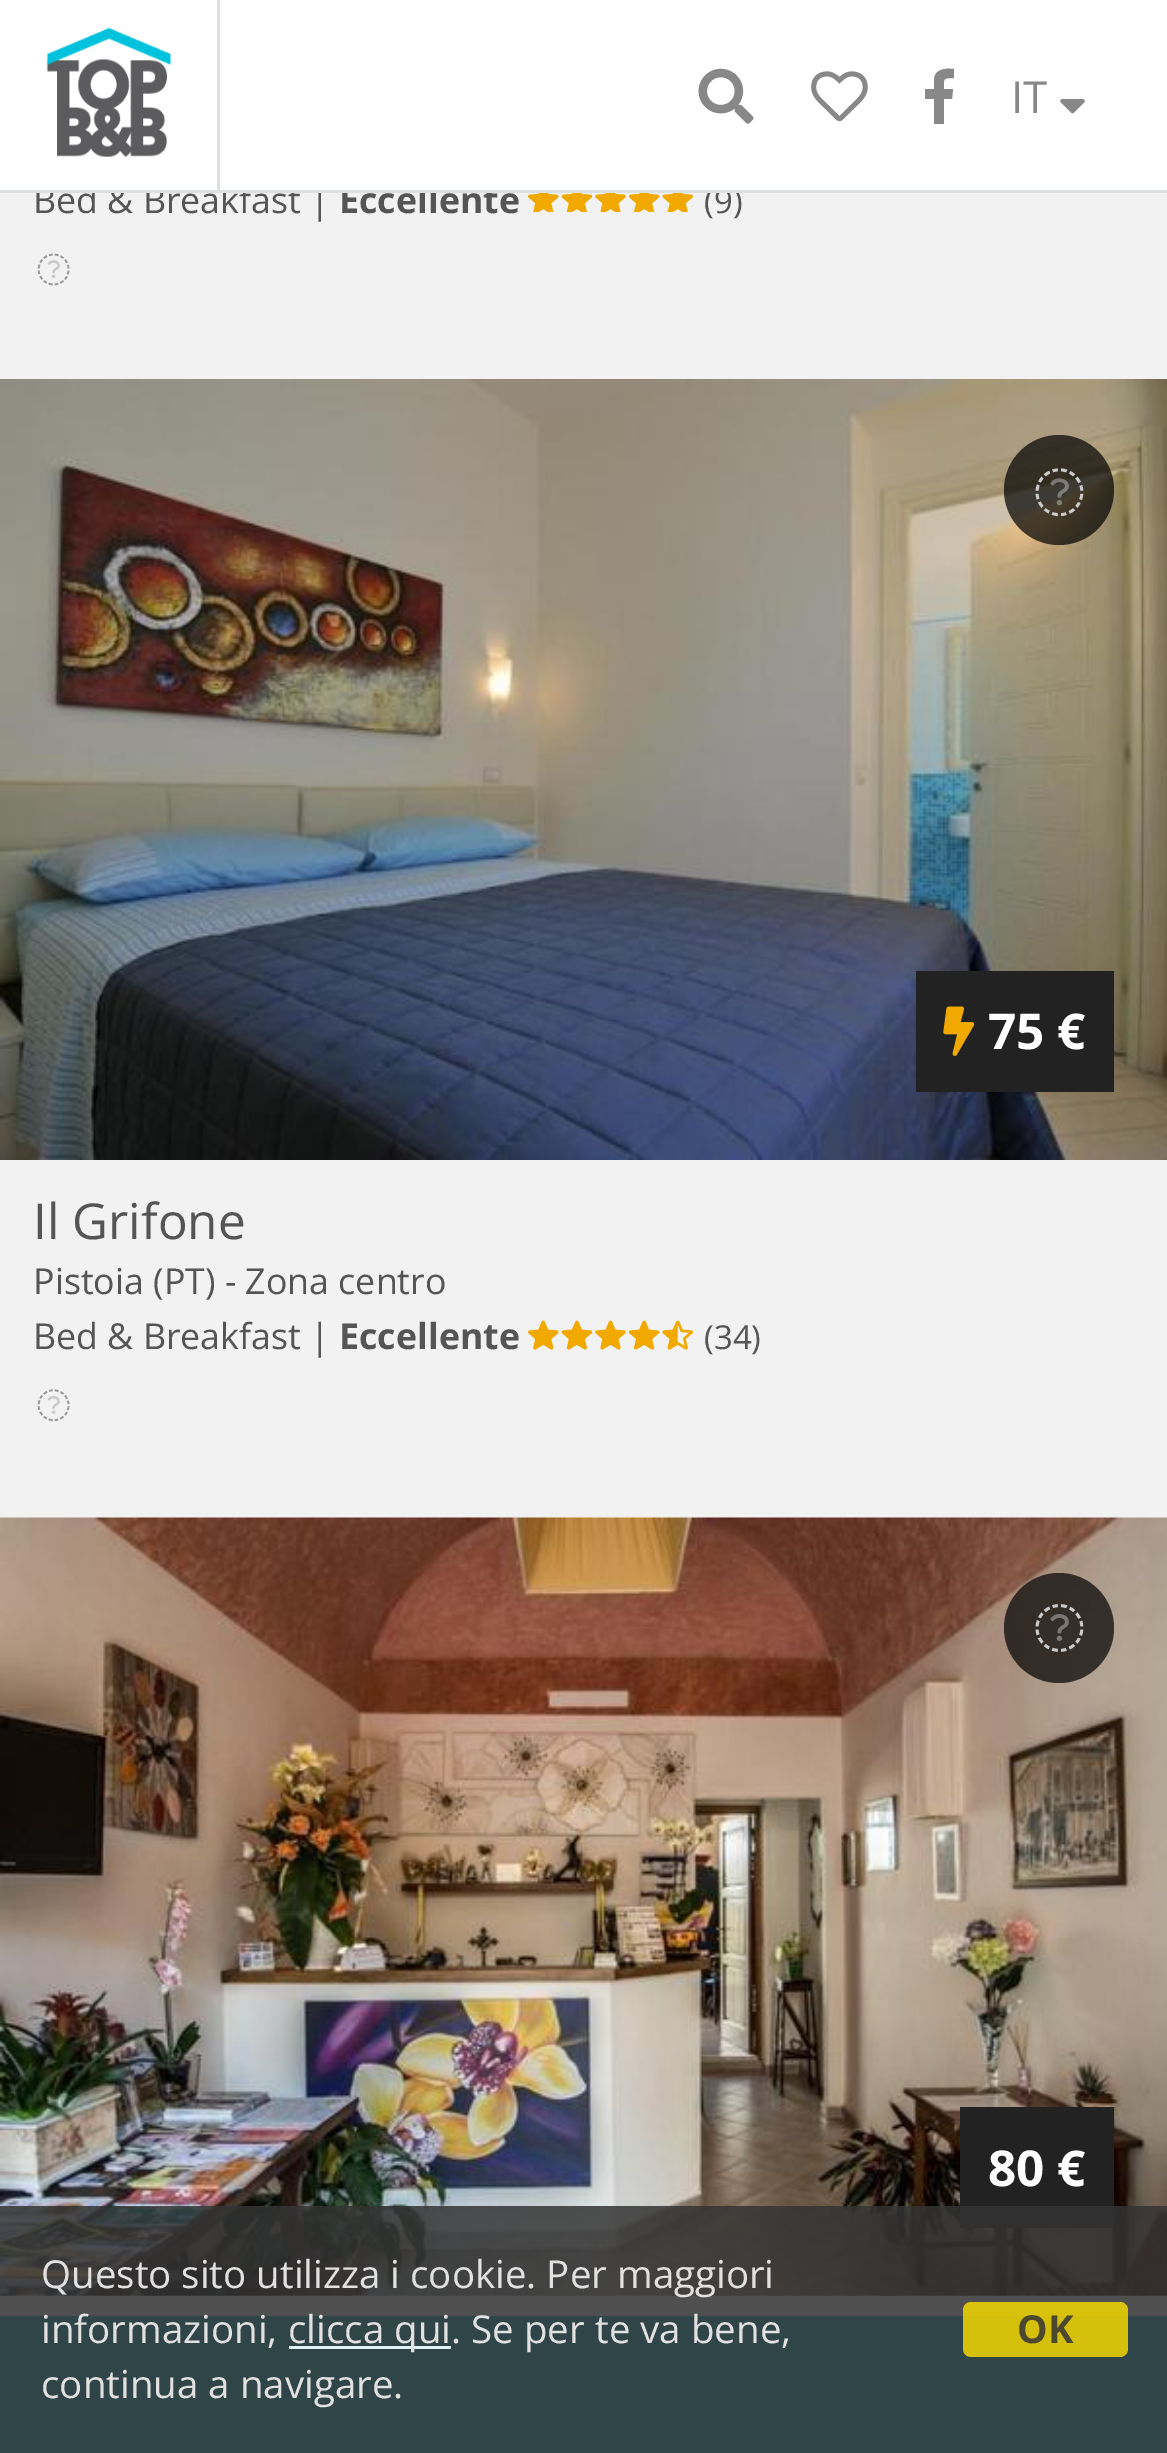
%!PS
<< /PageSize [1167 2453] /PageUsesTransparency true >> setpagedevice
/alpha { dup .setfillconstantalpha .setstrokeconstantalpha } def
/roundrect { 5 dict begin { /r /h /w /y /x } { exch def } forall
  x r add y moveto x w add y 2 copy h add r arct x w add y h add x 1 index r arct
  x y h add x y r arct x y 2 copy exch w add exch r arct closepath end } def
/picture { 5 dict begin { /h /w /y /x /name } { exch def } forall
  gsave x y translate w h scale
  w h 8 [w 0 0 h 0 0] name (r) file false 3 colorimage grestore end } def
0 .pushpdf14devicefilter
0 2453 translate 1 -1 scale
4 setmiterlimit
0.949 setgray
0 0 1167 2453 rectfill
/OpenSans-Regular [35.75 0 0 -35.75 0 0] selectfont
0.333 setgray
33 213 moveto (Bed & Breakfast |) show
/OpenSans-Bold [35.75 0 0 -35.75 0 0] selectfont
339 213 moveto (Eccellente) show
/OpenSans-Regular [33 0 0 -33 0 0] selectfont
704 213 moveto (\(9\)) show
1 setgray
0 0 1167 190 rectfill
0.863 0.878 0.878 setrgbcolor
0 190 1167 3 rectfill
217 0 3 193 rectfill
(img1.rgb) 46 27 125 130 picture
(img2.rgb) 698 68 56 56 picture
(img3.rgb) 811 71 57 51 picture
0.533 setgray
newpath 934 124 moveto 934 99 lineto 925 99 lineto 925 89 lineto 934 89 lineto 934 79 lineto 935 69 945 68 954 69 curveto 954 78 lineto 942 78 944 79 944 89 curveto 953 89 lineto 952 99 lineto 944 99 lineto 944 124 lineto fill
/OpenSans-Regular [44 0 0 -44 0 0] selectfont
1011 113 moveto (IT) show
(img4.rgb) 1060 99 25 15 picture
(img5.rgb) 528 193 165 19 picture
(img6.rgb) 37 253 33 33 picture
(img7.rgb) 0 379 1167 781 picture
0.7 alpha
0 setgray
newpath 1059 490 55 0 360 arc closepath fill
1 alpha
(img8.rgb) 1035 468 49 49 picture
0.133 setgray
916 971 198 121 rectfill
(img9.rgb) 943 1006 32 50 picture
/OpenSans-Bold [49.5 0 0 -49.5 0 0] selectfont
1 setgray
988 1049 moveto (75 €) show
/OpenSans-Regular [49.5 0 0 -49.5 0 0] selectfont
0.333 setgray
33 1239 moveto (Il Grifone) show
/OpenSans-Regular [35.75 0 0 -35.75 0 0] selectfont
33 1294 moveto (Pistoia \(PT\) - Zona centro) show
33 1349 moveto (Bed & Breakfast |) show
/OpenSans-Bold [35.75 0 0 -35.75 0 0] selectfont
339 1349 moveto (Eccellente) show
(img10.rgb) 528 1320 165 30 picture
/OpenSans-Regular [33 0 0 -33 0 0] selectfont
704 1349 moveto (\(34\)) show
(img11.rgb) 37 1389 33 33 picture
(img12.rgb) 0 1517 1167 779 picture
0.7 alpha
0 setgray
newpath 1059 1628 55 0 360 arc closepath fill
1 alpha
(img13.rgb) 1035 1604 49 48 picture
0.133 setgray
960 2107 154 121 rectfill
/OpenSans-Bold [49.5 0 0 -49.5 0 0] selectfont
1 setgray
988 2186 moveto (80 €) show
0.129 0.663 0.757 setrgbcolor
0 2316 1167 137 rectfill
0.85 alpha
0.2 setgray
0 2206 1167 247 rectfill
/OpenSans-Regular [38.5 0 0 -38.5 0 0] selectfont
1 alpha
0.886 0.882 0.882 setrgbcolor
41 2288 moveto (Questo sito utilizza i cookie. Per maggiori) show
41 2343 moveto (informazioni,) show
0.871 0.949 0.965 setrgbcolor
289 2346 162 3 rectfill
0.886 0.882 0.882 setrgbcolor
288 2343 moveto (clicca qui. Se per te va bene,) show
41 2398 moveto (continua a navigare.) show
0.85 alpha
0.945 0.839 0 setrgbcolor
963 2302 165 55 8 roundrect fill
/OpenSans-Bold [38.5 0 0 -38.5 0 0] selectfont
1 alpha
0.294 0.282 0.176 setrgbcolor
1017 2343 moveto (OK) show
.poppdf14devicefilter showpage
